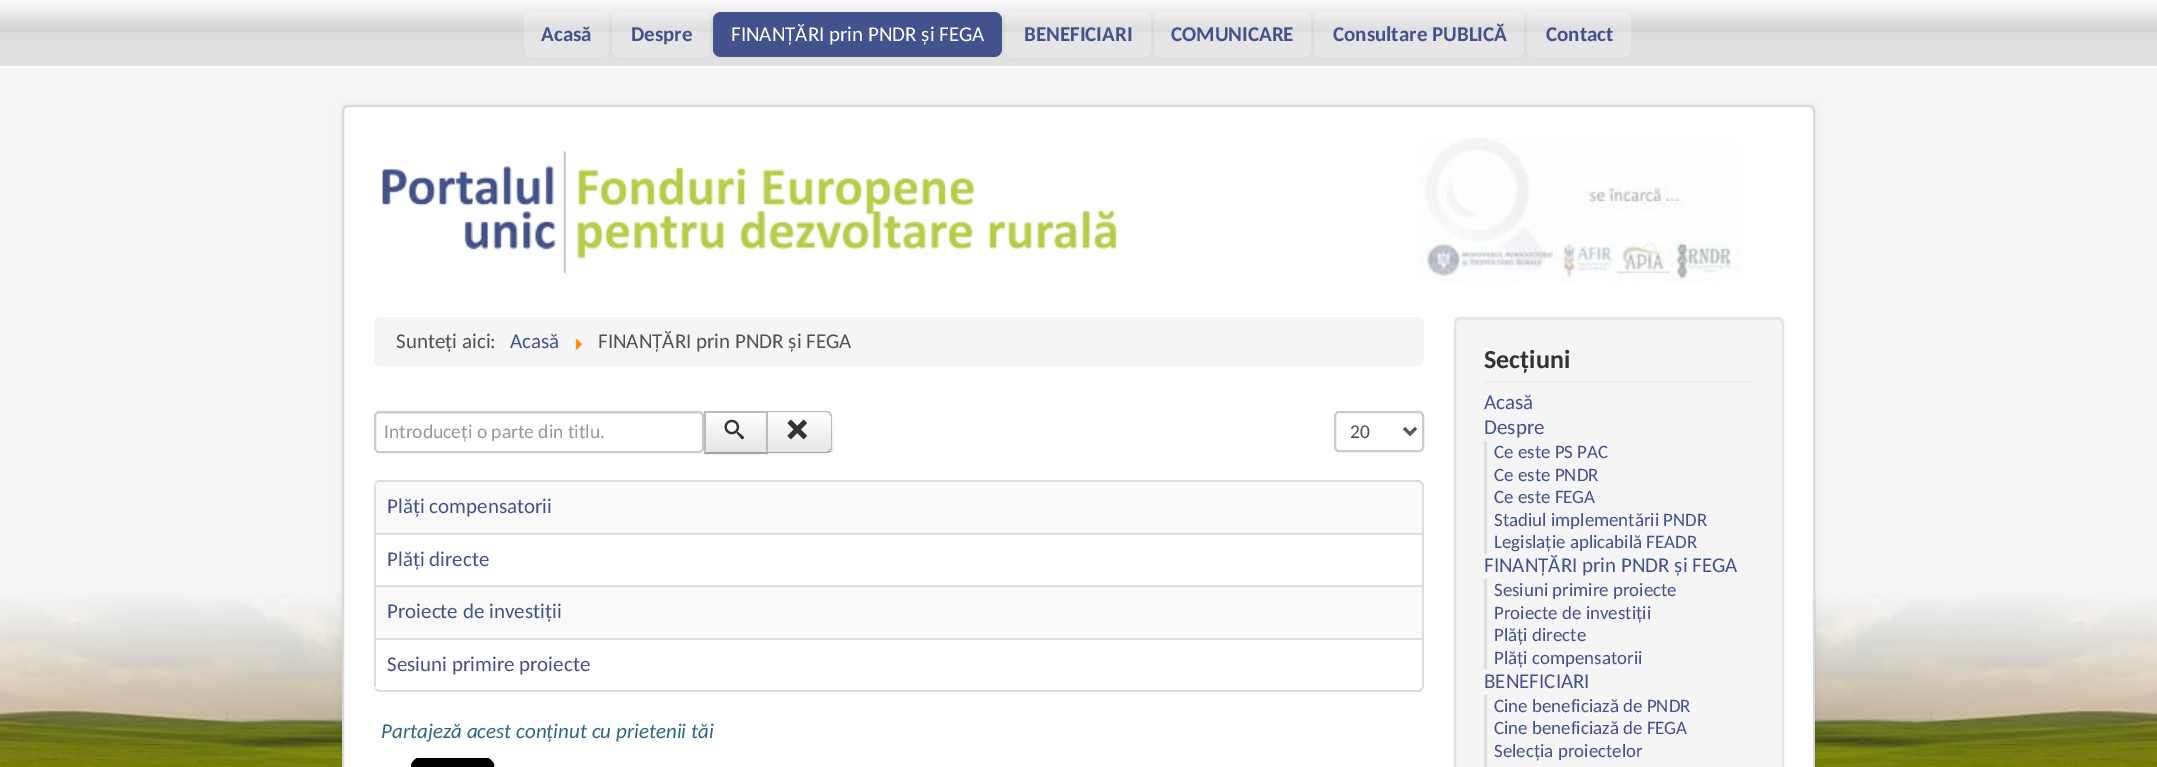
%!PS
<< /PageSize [2157 767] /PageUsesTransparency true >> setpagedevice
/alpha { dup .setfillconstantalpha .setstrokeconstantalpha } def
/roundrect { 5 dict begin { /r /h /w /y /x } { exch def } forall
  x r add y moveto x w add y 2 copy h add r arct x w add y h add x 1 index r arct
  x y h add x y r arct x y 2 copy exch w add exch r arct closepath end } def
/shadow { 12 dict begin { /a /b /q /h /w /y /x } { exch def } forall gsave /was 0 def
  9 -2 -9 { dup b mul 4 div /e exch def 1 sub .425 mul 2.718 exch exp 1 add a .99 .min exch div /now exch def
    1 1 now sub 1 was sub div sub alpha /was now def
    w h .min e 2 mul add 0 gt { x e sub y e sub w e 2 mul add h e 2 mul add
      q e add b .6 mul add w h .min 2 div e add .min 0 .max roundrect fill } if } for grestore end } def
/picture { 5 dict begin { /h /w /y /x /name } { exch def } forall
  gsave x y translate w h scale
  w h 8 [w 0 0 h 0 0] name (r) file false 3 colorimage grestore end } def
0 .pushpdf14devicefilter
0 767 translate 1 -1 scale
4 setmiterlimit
0.957 0.965 0.969 setrgbcolor
0 0 2157 767 rectfill
(img7.rgb) 0 593 2157 174 picture
0 setgray
342 105 1473 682 6 4.5 0.05 shadow
1 setgray
342 105 1473 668 6 roundrect fill
0.15 alpha
0 setgray
2 setlinewidth
343 106 1471 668 5 roundrect stroke
1 alpha
gsave newpath 0 0 moveto 2157 0 lineto 2157 66 lineto 0 66 lineto closepath clip newpath
<< /ShadingType 2 /ColorSpace /DeviceRGB /Coords [1079 -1.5 1079 66] /Extend [true true] /Function << /FunctionType 3 /Domain [0 1] /Functions [<< /FunctionType 2 /Domain [0 1] /C0 [0.996 0.996 0.996] /C1 [0.82 0.82 0.82] /N 1 >> << /FunctionType 2 /Domain [0 1] /C0 [0.82 0.82 0.82] /C1 [0.859 0.859 0.859] /N 1 >> << /FunctionType 2 /Domain [0 1] /C0 [0.859 0.859 0.859] /C1 [0.886 0.886 0.886] /N 1 >>] /Bounds [0.49 0.5] /Encode [0 1 0 1 0 1] >> >> shfill grestore
1 setgray
0 66 2157 2 rectfill
0.25 alpha
524 12 85 45 8 roundrect fill
/Carlito-Bold [21 0 0 -21 0 0] selectfont
1 alpha
0.259 0.322 0.549 setrgbcolor
541 41 moveto (Acasă) show
0.25 alpha
1 setgray
612 12 98 45 8 roundrect fill
1 alpha
0.259 0.322 0.549 setrgbcolor
631 41 moveto (Despre) show
713 12 289 45 8 roundrect fill
/Carlito-Regular [21 0 0 -21 0 0] selectfont
1 setgray
731 41 moveto (FINANȚĂRI prin PNDR și FEGA) show
0.25 alpha
1005 12 146 45 8 roundrect fill
/Carlito-Bold [21 0 0 -21 0 0] selectfont
1 alpha
0.259 0.322 0.549 setrgbcolor
1024 41 moveto (BENEFICIARI) show
0.25 alpha
1 setgray
1154 12 157 45 8 roundrect fill
1 alpha
0.259 0.322 0.549 setrgbcolor
1171 41 moveto (COMUNICARE) show
0.25 alpha
1 setgray
1314 12 210 45 8 roundrect fill
1 alpha
0.259 0.322 0.549 setrgbcolor
1333 41 moveto (Consultare PUBLICĂ) show
0.25 alpha
1 setgray
1527 12 104 45 8 roundrect fill
1 alpha
0.259 0.322 0.549 setrgbcolor
1546 41 moveto (Contact) show
(img1.rgb) 382 151 735 123 picture
(img2.rgb) 1419 138 322 145 picture
0.961 setgray
374 317 1050 49 6 roundrect fill
/Carlito-Regular [21 0 0 -21 0 0] selectfont
0.318 setgray
396 348 moveto (Sunteți aici:) show
0.259 0.322 0.549 setrgbcolor
510 348 moveto (Acasă) show
(img3.rgb) 575 338 8 12 picture
0.318 setgray
598 348 moveto (FINANȚĂRI prin PNDR și FEGA) show
0.925 setgray
newpath 378 414 moveto 699 414 lineto 701 414 702 415 702 417 curveto 702 415 701 413 699 413 curveto 378 413 lineto 376 413 375 415 375 417 curveto 375 415 376 414 378 414 curveto closepath fill
0.8 setgray
375 412 328 40 4 roundrect stroke
/Carlito-Regular [19.5 0 0 -19.5 0 0] selectfont
0.6 setgray
384 438 moveto (Introduceți o parte din titlu.) show
0 setgray
704 413 64 42 0 1.5 0.05 shadow
gsave newpath 706 413 moveto 766 413 lineto 766 452 lineto 706 452 lineto closepath clip newpath
<< /ShadingType 2 /ColorSpace /DeviceRGB /Coords [736 413 736 452] /Extend [true true] /Function << /FunctionType 2 /Domain [0 1] /C0 [1 1 1] /C1 [0.902 0.902 0.902] /N 1 >> >> shfill grestore
0.733 setgray
704 411 64 2 rectfill
0.635 setgray
704 452 64 2 rectfill
0.733 setgray
704 411 2 42 rectfill
(img4.rgb) 724 419 20 21 picture
0 setgray
767 413 66 42 6 1.5 0.05 shadow
0.961 setgray
newpath 767 411 moveto 827 411 lineto 830.5 411 833 413.5 833 417 curveto 833 447 lineto 833 450.5 830.5 453 827 453 curveto 767 453 lineto closepath fill
gsave
newpath 767 411 moveto 827 411 lineto 830.5 411 833 413.5 833 417 curveto 833 447 lineto 833 450.5 830.5 453 827 453 curveto 767 453 lineto closepath clip newpath
gsave newpath 768 413 moveto 833 413 lineto 833 452 lineto 768 452 lineto closepath clip newpath
<< /ShadingType 2 /ColorSpace /DeviceRGB /Coords [800 413 800 452] /Extend [true true] /Function << /FunctionType 2 /Domain [0 1] /C0 [1 1 1] /C1 [0.902 0.902 0.902] /N 1 >> >> shfill grestore
grestore
0.733 setgray
newpath 768 412 moveto 827 412 lineto 830 414 lineto 831 413 lineto 830 412 828 411 826 411 curveto 766 411 lineto closepath fill
newpath 830.5 413 moveto 831.5 414 832 415.5 832 417 curveto 832 447 lineto 832 448.5 831.5 450 830.5 451 curveto 829.5 450 lineto 830.5 449 831 448 831 447 curveto 831 417 lineto 831 416 830.5 415 829.5 414 curveto closepath fill
0.635 setgray
newpath 766 453 moveto 826 453 lineto 828 453 830 452 831 451 curveto 830 450 lineto 827 452 lineto 768 452 lineto closepath fill
0.733 setgray
newpath 766 453 moveto 768 452 lineto 768 412 lineto 766 411 lineto closepath fill
(img5.rgb) 787 419 20 21 picture
0.8 setgray
1335 412 88 39 4 roundrect stroke
0.333 setgray
3 setlinewidth
newpath 1404 428 moveto 1410 434 lineto 1416 428 lineto stroke
0.318 setgray
1350 438 moveto (20) show
0.867 setgray
newpath 380 480 moveto 1418 480 lineto 1421 480 1424 483 1424 486 curveto 1424 686 lineto 1424 689 1421 692 1418 692 curveto 380 692 lineto 376 692 374 689 374 686 curveto 374 486 lineto 374 483 376 480 380 480 curveto closepath 380 482 moveto 1418 482 lineto 1420 482 1422 484 1422 486 curveto 1422 686 lineto 1422 688 1420 690 1418 690 curveto 380 690 lineto 376 690 374 688 374 686 curveto 374 486 lineto 374 484 376 482 380 482 curveto closepath eofill
0.976 setgray
newpath 380 482 moveto 1416 482 lineto 1419.5 482 1422 484.5 1422 488 curveto 1422 533 lineto 374 533 lineto 374 488 lineto 374 484.5 376.5 482 380 482 curveto closepath fill
0.867 setgray
374 485 2 48 rectfill
/Carlito-Regular [21 0 0 -21 0 0] selectfont
0.259 0.322 0.549 setrgbcolor
387 513 moveto (Plăți compensatorii) show
0.867 setgray
374 533 1048 2 rectfill
374 533 2 52 rectfill
0.259 0.322 0.549 setrgbcolor
387 566 moveto (Plăți directe) show
0.976 setgray
376 587 1046 51 rectfill
0.867 setgray
374 585 1048 2 rectfill
374 585 2 53 rectfill
0.259 0.322 0.549 setrgbcolor
387 618 moveto (Proiecte de investiții) show
0.867 setgray
374 638 1048 2 rectfill
374 638 2 49 rectfill
0.259 0.322 0.549 setrgbcolor
387 671 moveto (Sesiuni primire proiecte) show
/Carlito-Italic [21 0 0 -21 0 0] selectfont
0.176 0.412 0.529 setrgbcolor
381 738 moveto (Partajeză acest conținut cu prietenii tăi) show
(img6.rgb) 411 758 84 9 picture
0.961 setgray
1454 317 330 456 6 roundrect fill
0.914 setgray
newpath 1460 320 moveto 1778 320 lineto 1780 320 1782 322 1782 324 curveto 1782 321 1780 318 1777 318 curveto 1460 318 lineto 1457 318 1455 321 1455 324 curveto 1455 322 1457 320 1460 320 curveto closepath fill
0.89 setgray
2 setlinewidth
1455 318 328 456 5 roundrect stroke
0.933 setgray
1484 381 270 2 rectfill
/Carlito-Bold [26 0 0 -26 0 0] selectfont
0.2 setgray
1484 368 moveto (Secțiuni) show
/Carlito-Regular [21 0 0 -21 0 0] selectfont
0.259 0.322 0.549 setrgbcolor
1484 409 moveto (Acasă) show
1484 434 moveto (Despre) show
0.867 setgray
1484 441 3 113 rectfill
/Carlito-Regular [18.9 0 0 -18.9 0 0] selectfont
0.259 0.322 0.549 setrgbcolor
1494 458 moveto (Ce este PS PAC) show
1494 481 moveto (Ce este PNDR) show
1494 503 moveto (Ce este FEGA) show
1494 526 moveto (Stadiul implementării PNDR) show
1494 548 moveto (Legislație aplicabilă FEADR) show
/Carlito-Regular [21 0 0 -21 0 0] selectfont
1484 572 moveto (FINANȚĂRI prin PNDR și FEGA) show
0.867 setgray
1484 579 3 90 rectfill
/Carlito-Regular [18.9 0 0 -18.9 0 0] selectfont
0.259 0.322 0.549 setrgbcolor
1494 596 moveto (Sesiuni primire proiecte) show
1494 619 moveto (Proiecte de investiții) show
1494 641 moveto (Plăți directe) show
1494 664 moveto (Plăți compensatorii) show
/Carlito-Regular [21 0 0 -21 0 0] selectfont
1484 688 moveto (BENEFICIARI) show
0.867 setgray
1484 695 3 72 rectfill
/Carlito-Regular [18.9 0 0 -18.9 0 0] selectfont
0.259 0.322 0.549 setrgbcolor
1494 712 moveto (Cine beneficiază de PNDR) show
1494 734 moveto (Cine beneficiază de FEGA) show
1494 757 moveto (Selecția proiectelor) show
.poppdf14devicefilter showpage
